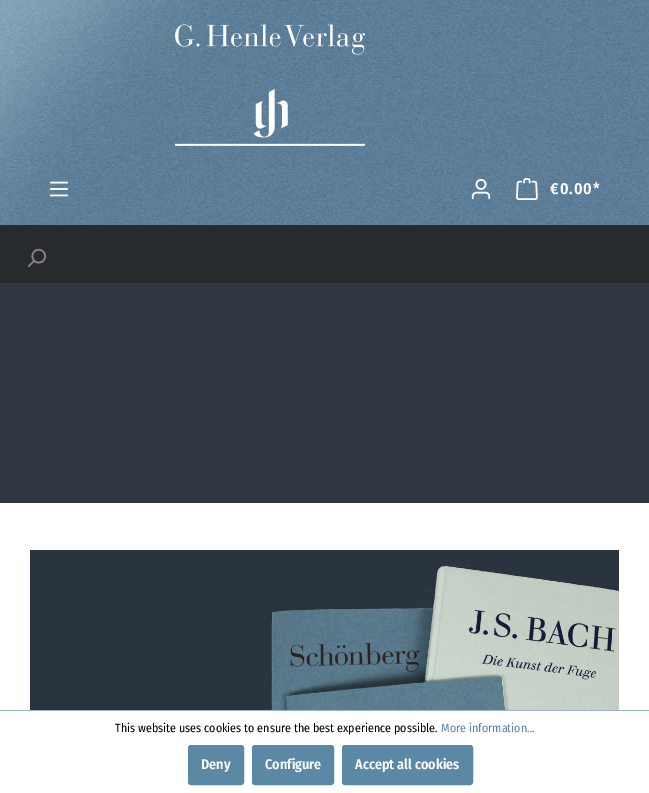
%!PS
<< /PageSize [649 793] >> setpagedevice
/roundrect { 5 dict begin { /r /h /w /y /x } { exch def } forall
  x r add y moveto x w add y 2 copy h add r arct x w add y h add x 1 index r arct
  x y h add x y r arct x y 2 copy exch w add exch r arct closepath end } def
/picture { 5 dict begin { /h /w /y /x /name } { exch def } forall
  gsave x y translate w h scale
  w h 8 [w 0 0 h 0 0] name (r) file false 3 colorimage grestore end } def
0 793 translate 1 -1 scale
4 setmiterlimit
1 setgray
0 0 649 793 rectfill
(img1.rgb) 0 0 649 225 picture
(img2.rgb) 175 24 190 122 picture
(img3.rgb) 49 181 20 16 picture
(img4.rgb) 471 178 20 22 picture
(img5.rgb) 516 178 22 22 picture
/FiraSansCondensed-SemiBold [16 0 0 -16 0 0] selectfont
550 194 moveto 1 0 (€0.00*) ashow
0.153 0.169 0.18 setrgbcolor
0 225 649 58 rectfill
(img6.rgb) 27 248 20 20 picture
0.184 0.216 0.259 setrgbcolor
0 283 649 220 rectfill
(img7.rgb) 30 550 589 160 picture
0.604 0.71 0.78 setrgbcolor
0 710 649 1 rectfill
/FiraSansCondensed-Regular [12 0 0 -12 0 0] selectfont
0 setgray
115 732 moveto (This website uses cookies to ensure the best experience possible.) show
0.357 0.537 0.647 setrgbcolor
441 732 moveto (More information...) show
188.5 745.5 55 39 2.5 roundrect gsave fill grestore
stroke
/FiraSansCondensed-SemiBold [14 0 0 -14 0 0] selectfont
1 setgray
201 769 moveto (Deny) show
0.357 0.537 0.647 setrgbcolor
252.5 745.5 81 39 2.5 roundrect gsave fill grestore
stroke
1 setgray
265 769 moveto (Configure) show
0.357 0.537 0.647 setrgbcolor
342.5 745.5 130 39 2.5 roundrect gsave fill grestore
stroke
1 setgray
355 769 moveto (Accept all cookies) show
showpage
